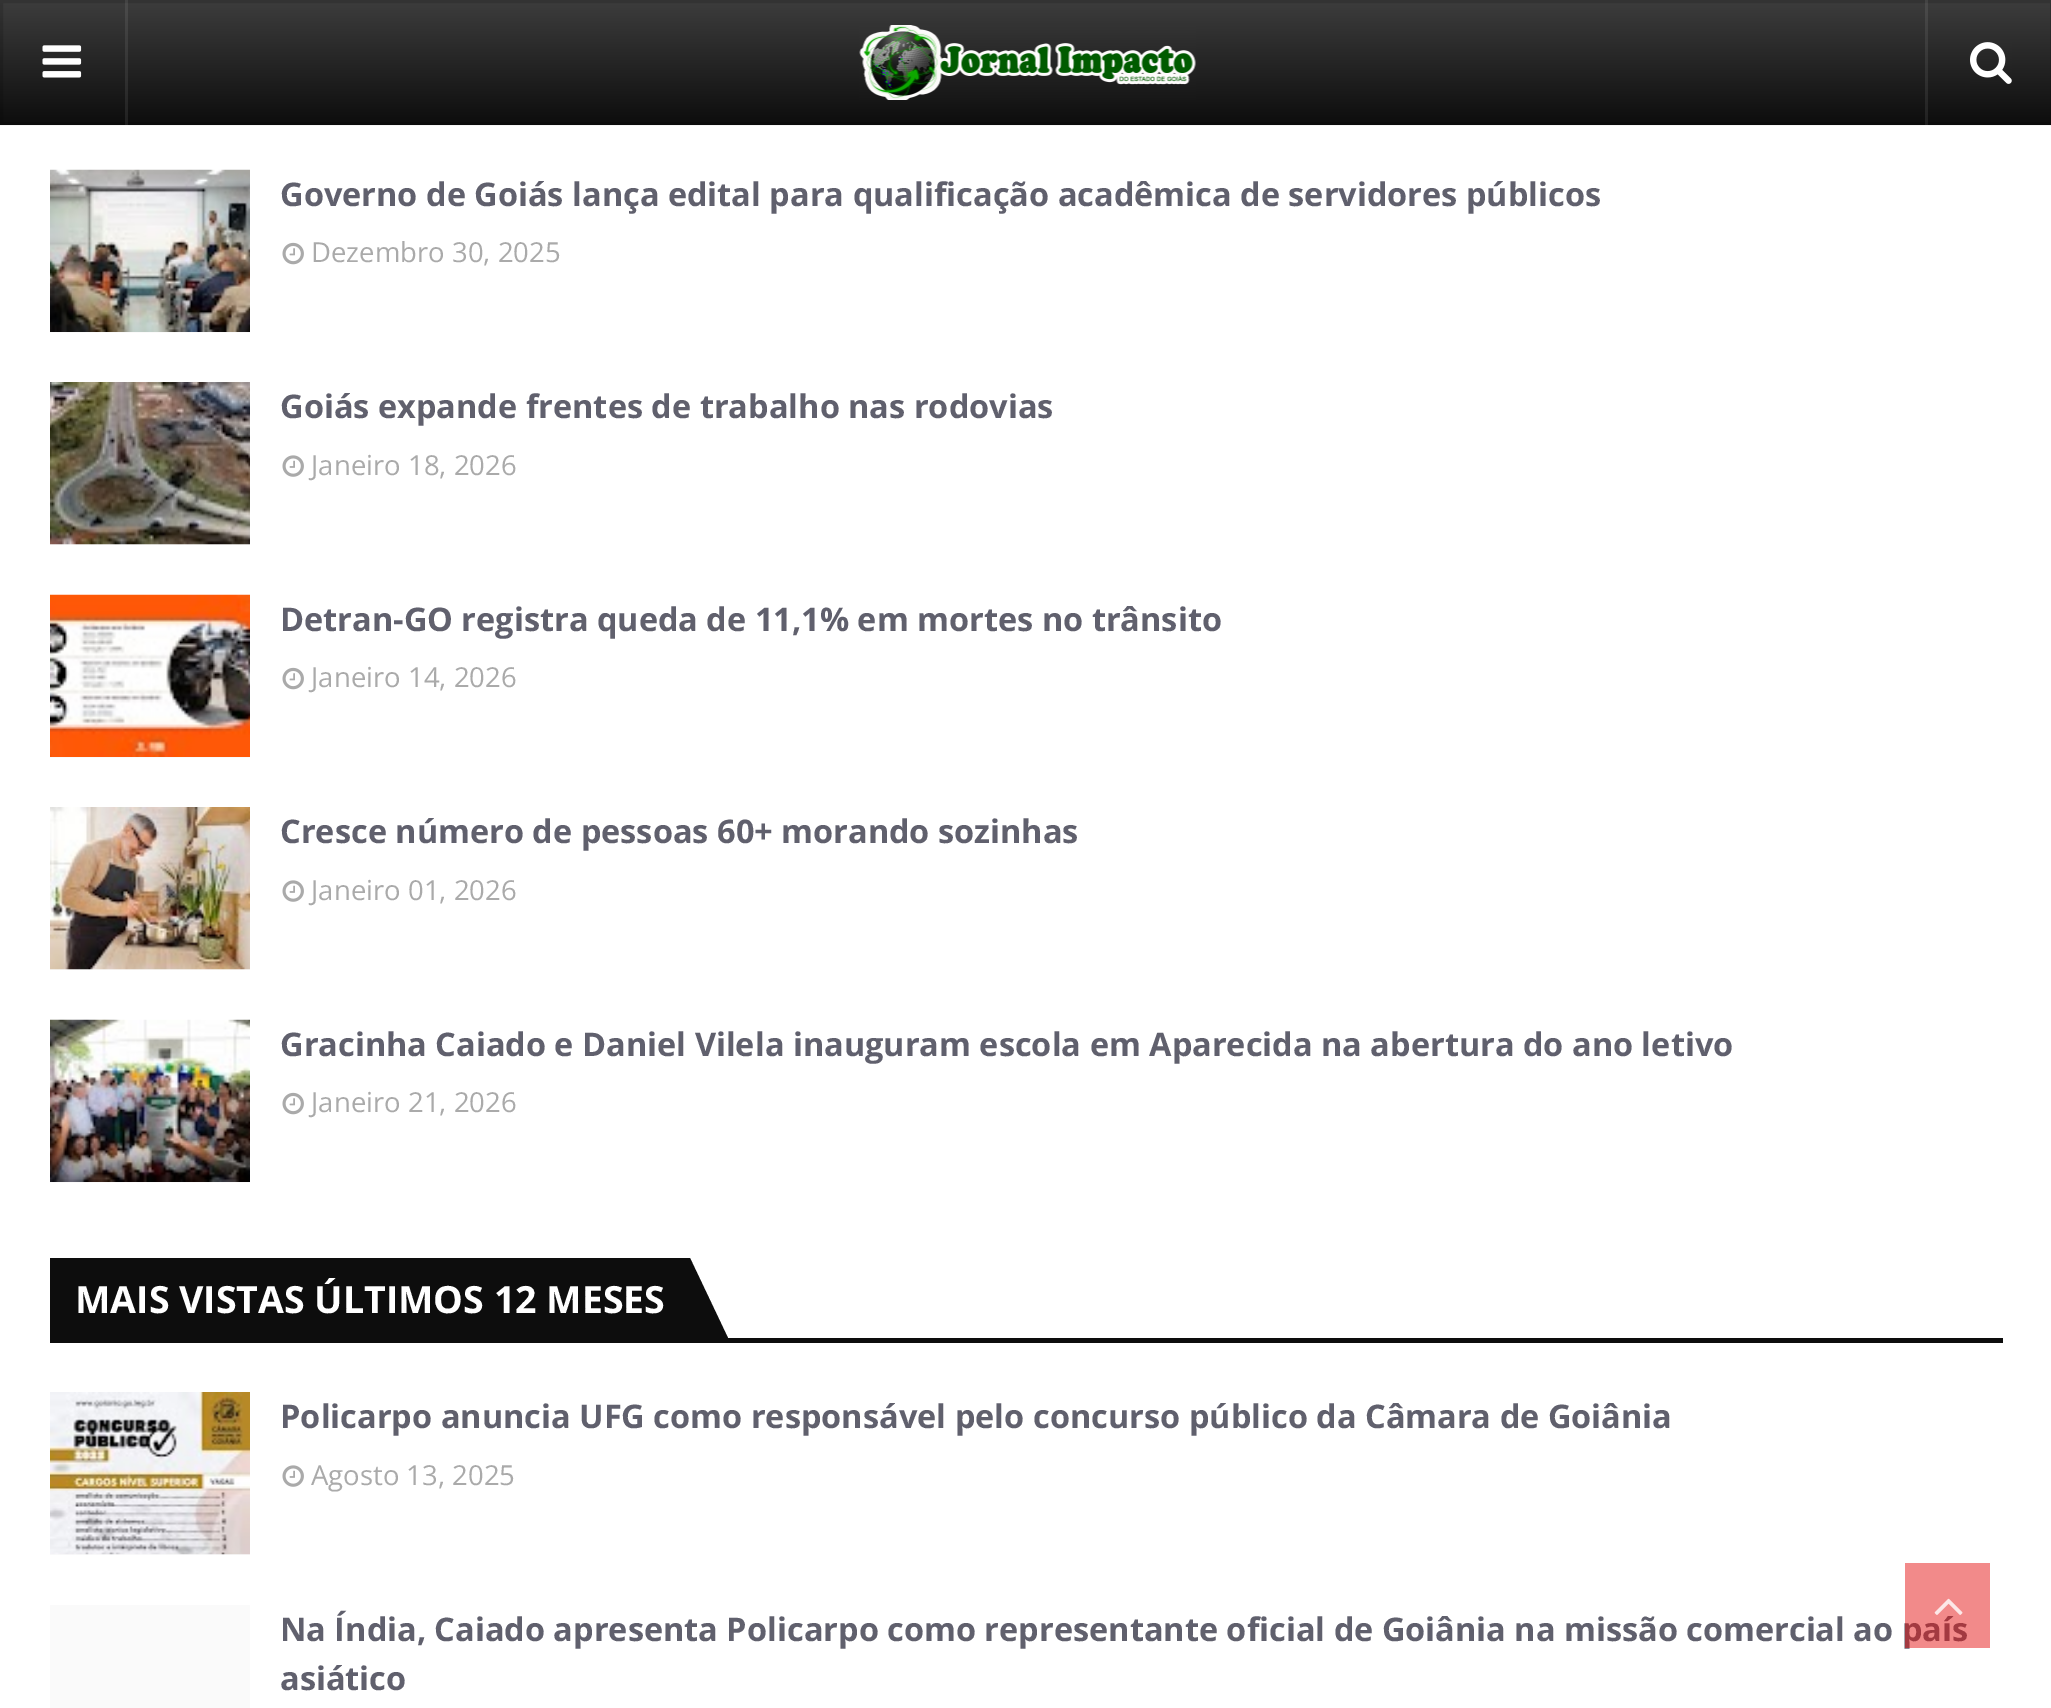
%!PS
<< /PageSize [2051 1708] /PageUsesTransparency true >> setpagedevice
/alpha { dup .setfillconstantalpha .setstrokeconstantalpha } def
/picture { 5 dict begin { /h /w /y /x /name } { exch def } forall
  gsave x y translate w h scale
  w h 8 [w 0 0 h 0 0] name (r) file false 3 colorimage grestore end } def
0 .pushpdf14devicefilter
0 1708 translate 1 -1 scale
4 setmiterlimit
1 setgray
0 0 2051 1708 rectfill
gsave newpath 0 0 moveto 2051 0 lineto 2051 125 lineto 0 125 lineto closepath clip newpath
<< /ShadingType 2 /ColorSpace /DeviceRGB /Coords [1026 0 1026 125] /Extend [true true] /Function << /FunctionType 2 /Domain [0 1] /C0 [0.239 0.239 0.239] /C1 [0.051 0.051 0.051] /N 1 >> >> shfill grestore
0.15 alpha
0 setgray
3 setlinewidth
1.5 1.5 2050 122 rectstroke
0.08 alpha
1 setgray
125 0 3 125 rectfill
1 alpha
(img1.rgb) 42 45 40 33 picture
(img2.rgb) 859 25 337 75 picture
0.08 alpha
1925 0 3 125 rectfill
1 alpha
(img3.rgb) 1970 42 42 42 picture
0.98 setgray
50 332 200 1 rectfill
(img4.rgb) 50 169 200 163 picture
/OpenSans-Bold [32.5 0 0 -32.5 0 0] selectfont
0.376 0.376 0.427 setrgbcolor
280 206 moveto (Governo de Goiás lança edital para qualificação acadêmica de servidores públicos) show
(img5.rgb) 282 242 22 23 picture
/OpenSans-Regular [27.5 0 0 -27.5 0 0] selectfont
0.667 setgray
311 262 moveto (Dezembro 30, 2025) show
0.98 setgray
50 544 200 1 rectfill
(img6.rgb) 50 382 200 163 picture
/OpenSans-Bold [32.5 0 0 -32.5 0 0] selectfont
0.376 0.376 0.427 setrgbcolor
280 418 moveto (Goiás expande frentes de trabalho nas rodovias) show
(img7.rgb) 282 455 22 22 picture
/OpenSans-Regular [27.5 0 0 -27.5 0 0] selectfont
0.667 setgray
311 475 moveto (Janeiro 18, 2026) show
0.98 setgray
50 757 200 1 rectfill
(img8.rgb) 50 594 200 163 picture
/OpenSans-Bold [32.5 0 0 -32.5 0 0] selectfont
0.376 0.376 0.427 setrgbcolor
280 631 moveto (Detran-GO registra queda de 11,1% em mortes no trânsito) show
(img5.rgb) 282 667 22 23 picture
/OpenSans-Regular [27.5 0 0 -27.5 0 0] selectfont
0.667 setgray
311 687 moveto (Janeiro 14, 2026) show
0.98 setgray
50 969 200 1 rectfill
(img9.rgb) 50 807 200 163 picture
/OpenSans-Bold [32.5 0 0 -32.5 0 0] selectfont
0.376 0.376 0.427 setrgbcolor
280 843 moveto (Cresce número de pessoas 60+ morando sozinhas) show
(img7.rgb) 282 880 22 22 picture
/OpenSans-Regular [27.5 0 0 -27.5 0 0] selectfont
0.667 setgray
311 900 moveto (Janeiro 01, 2026) show
0.98 setgray
50 1182 200 1 rectfill
(img10.rgb) 50 1019 200 163 picture
/OpenSans-Bold [32.5 0 0 -32.5 0 0] selectfont
0.376 0.376 0.427 setrgbcolor
280 1056 moveto (Gracinha Caiado e Daniel Vilela inauguram escola em Aparecida na abertura do ano letivo) show
(img5.rgb) 282 1092 22 23 picture
/OpenSans-Regular [27.5 0 0 -27.5 0 0] selectfont
0.667 setgray
311 1112 moveto (Janeiro 21, 2026) show
0.051 setgray
50 1338 1953 5 rectfill
50 1258 640 80 rectfill
/OpenSans-Bold [37.5 0 0 -37.5 0 0] selectfont
1 setgray
75 1313 moveto (MAIS VISTAS ÚLTIMOS 12 MESES) show
0.051 setgray
newpath 690 1338 moveto 690 1258 lineto 728 1338 lineto closepath fill
0.98 setgray
50 1554 200 1 rectfill
(img11.rgb) 50 1392 200 163 picture
/OpenSans-Bold [32.5 0 0 -32.5 0 0] selectfont
0.376 0.376 0.427 setrgbcolor
280 1428 moveto (Policarpo anuncia UFG como responsável pelo concurso público da Câmara de Goiânia) show
(img7.rgb) 282 1465 22 22 picture
/OpenSans-Regular [27.5 0 0 -27.5 0 0] selectfont
0.667 setgray
311 1485 moveto (Agosto 13, 2025) show
0.98 setgray
50 1605 200 103 rectfill
/OpenSans-Bold [32.5 0 0 -32.5 0 0] selectfont
0.376 0.376 0.427 setrgbcolor
280 1641 moveto (Na Índia, Caiado apresenta Policarpo como representante oficial de Goiânia na missão comercial ao país) show
280 1690 moveto (asiático) show
0.5 alpha
0.898 0.082 0.082 setrgbcolor
1905 1563 85 85 rectfill
1 alpha
(img12.rgb) 1934 1598 29 17 picture
.poppdf14devicefilter showpage
